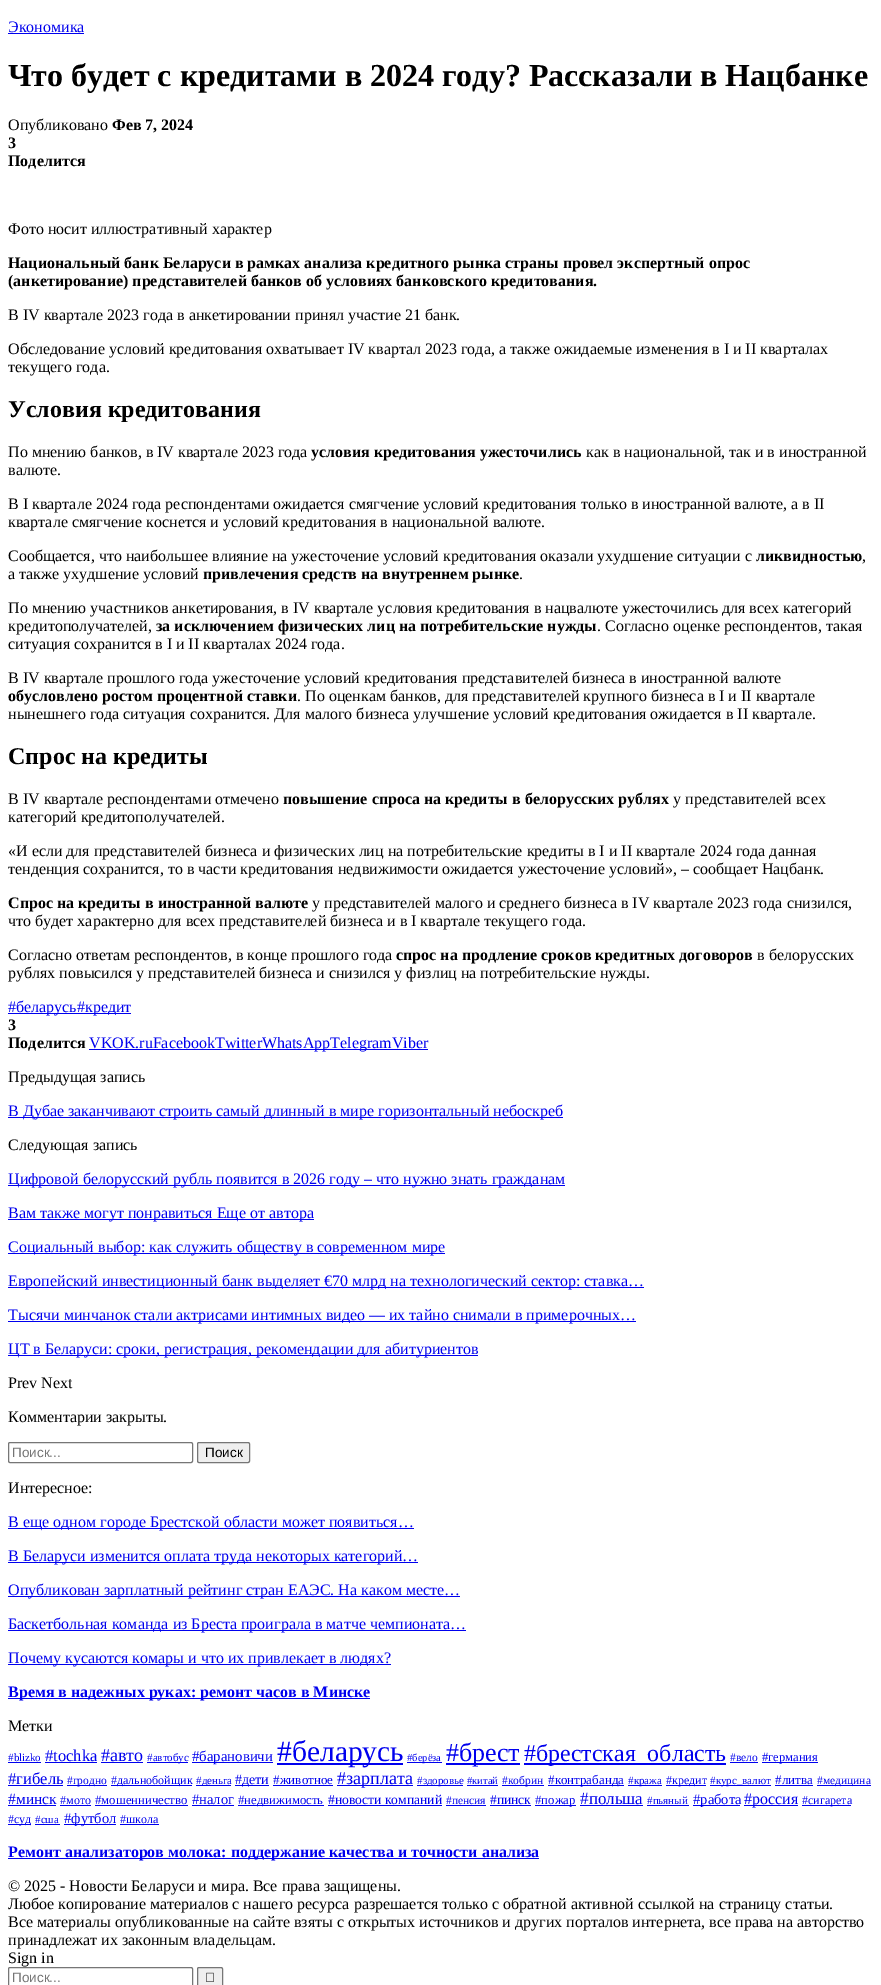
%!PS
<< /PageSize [881 1985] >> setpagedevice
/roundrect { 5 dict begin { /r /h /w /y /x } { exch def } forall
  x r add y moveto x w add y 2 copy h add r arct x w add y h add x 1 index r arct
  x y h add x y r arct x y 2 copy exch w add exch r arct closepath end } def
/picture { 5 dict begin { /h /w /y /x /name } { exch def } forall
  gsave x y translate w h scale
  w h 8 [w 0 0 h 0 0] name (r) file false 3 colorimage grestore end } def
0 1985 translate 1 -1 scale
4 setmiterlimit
1 setgray
0 0 881 1985 rectfill
/LiberationSerif-Regular [16 0 0 -16 0 0] selectfont
0 0 0.933 setrgbcolor
8 32 moveto (Экономика) show
8 33 76 1 rectfill
/LiberationSerif-Bold [32 0 0 -32 0 0] selectfont
0 setgray
8 86 moveto (Что будет с кредитами в 2024 году? Рассказали в Нацбанке) show
/LiberationSerif-Regular [16 0 0 -16 0 0] selectfont
8 130 moveto (Опубликовано) show
/LiberationSerif-Bold [16 0 0 -16 0 0] selectfont
112 130 moveto (Фев 7, 2024) show
8 148 moveto (3) show
8 166 moveto (Поделится) show
/LiberationSerif-Regular [16 0 0 -16 0 0] selectfont
8 234 moveto (Фото носит иллюстративный характер) show
/LiberationSerif-Bold [16 0 0 -16 0 0] selectfont
8 268 moveto (Национальный банк Беларуси в рамках анализа кредитного рынка страны провел экспертный опрос) show
8 286 moveto (\(анкетирование\) представителей банков об условиях банковского кредитования.) show
/LiberationSerif-Regular [16 0 0 -16 0 0] selectfont
8 320 moveto (В IV квартале 2023 года в анкетировании принял участие 21 банк.) show
8 354 moveto (Обследование условий кредитования охватывает IV квартал 2023 года, а также ожидаемые изменения в I и II кварталах) show
8 372 moveto (текущего года.) show
/LiberationSerif-Bold [24 0 0 -24 0 0] selectfont
8 417 moveto (Условия кредитования) show
/LiberationSerif-Regular [16 0 0 -16 0 0] selectfont
8 457 moveto (По мнению банков, в IV квартале 2023 года) show
/LiberationSerif-Bold [16 0 0 -16 0 0] selectfont
311 457 moveto (условия кредитования ужесточились) show
/LiberationSerif-Regular [16 0 0 -16 0 0] selectfont
586 457 moveto (как в национальной, так и в иностранной) show
8 475 moveto (валюте.) show
8 509 moveto (В I квартале 2024 года респондентами ожидается смягчение условий кредитования только в иностранной валюте, а в II) show
8 527 moveto (квартале смягчение коснется и условий кредитования в национальной валюте.) show
8 561 moveto (Сообщается, что наибольшее влияние на ужесточение условий кредитования оказали ухудшение ситуации с) show
/LiberationSerif-Bold [16 0 0 -16 0 0] selectfont
756 561 moveto (ликвидностью) show
/LiberationSerif-Regular [16 0 0 -16 0 0] selectfont
862 561 moveto (,) show
8 579 moveto (а также ухудшение условий) show
/LiberationSerif-Bold [16 0 0 -16 0 0] selectfont
203 579 moveto (привлечения средств на внутреннем рынке) show
/LiberationSerif-Regular [16 0 0 -16 0 0] selectfont
519 579 moveto (.) show
8 613 moveto (По мнению участников анкетирования, в IV квартале условия кредитования в нацвалюте ужесточились для всех категорий) show
8 631 moveto (кредитополучателей,) show
/LiberationSerif-Bold [16 0 0 -16 0 0] selectfont
156 631 moveto (за исключением физических лиц на потребительские нужды) show
/LiberationSerif-Regular [16 0 0 -16 0 0] selectfont
597 631 moveto (. Согласно оценке респондентов, такая) show
8 649 moveto (ситуация сохранится в I и II кварталах 2024 года.) show
8 683 moveto (В IV квартале прошлого года ужесточение условий кредитования представителей бизнеса в иностранной валюте) show
/LiberationSerif-Bold [16 0 0 -16 0 0] selectfont
8 701 moveto (обусловлено ростом процентной ставки) show
/LiberationSerif-Regular [16 0 0 -16 0 0] selectfont
297 701 moveto (. По оценкам банков, для представителей крупного бизнеса в I и II квартале) show
8 719 moveto (нынешнего года ситуация сохранится. Для малого бизнеса улучшение условий кредитования ожидается в II квартале.) show
/LiberationSerif-Bold [24 0 0 -24 0 0] selectfont
8 764 moveto (Спрос на кредиты) show
/LiberationSerif-Regular [16 0 0 -16 0 0] selectfont
8 804 moveto (В IV квартале респондентами отмечено) show
/LiberationSerif-Bold [16 0 0 -16 0 0] selectfont
283 804 moveto (повышение спроса на кредиты в белорусских рублях) show
/LiberationSerif-Regular [16 0 0 -16 0 0] selectfont
673 804 moveto (у представителей всех) show
8 822 moveto (категорий кредитополучателей.) show
8 856 moveto («И если для представителей бизнеса и физических лиц на потребительские кредиты в I и II квартале 2024 года данная) show
8 874 moveto (тенденция сохранится, то в части кредитования недвижимости ожидается ужесточение условий», – сообщает Нацбанк.) show
/LiberationSerif-Bold [16 0 0 -16 0 0] selectfont
8 908 moveto (Спрос на кредиты в иностранной валюте) show
/LiberationSerif-Regular [16 0 0 -16 0 0] selectfont
312 908 moveto (у представителей малого и среднего бизнеса в IV квартале 2023 года снизился,) show
8 926 moveto (что будет характерно для всех представителей бизнеса и в I квартале текущего года.) show
8 960 moveto (Согласно ответам респондентов, в конце прошлого года) show
/LiberationSerif-Bold [16 0 0 -16 0 0] selectfont
396 960 moveto (спрос на продление сроков кредитных договоров) show
/LiberationSerif-Regular [16 0 0 -16 0 0] selectfont
757 960 moveto (в белорусских) show
8 978 moveto (рублях повысился у представителей бизнеса и снизился у физлиц на потребительские нужды.) show
0 0 0.933 setrgbcolor
8 1013 123 1 rectfill
8 1012 moveto (#беларусь#кредит) show
/LiberationSerif-Bold [16 0 0 -16 0 0] selectfont
0 setgray
8 1030 moveto (3) show
8 1048 moveto (Поделится) show
0 0 0.933 setrgbcolor
89 1049 339 1 rectfill
/LiberationSerif-Regular [16 0 0 -16 0 0] selectfont
89 1048 moveto (VKOK.ruFacebookTwitterWhatsAppTelegramViber) show
0 setgray
8 1082 moveto (Предыдущая запись) show
0 0 0.933 setrgbcolor
8 1117 555 1 rectfill
8 1116 moveto (В Дубае заканчивают строить самый длинный в мире горизонтальный небоскреб) show
0 setgray
8 1150 moveto (Следующая запись) show
0 0 0.933 setrgbcolor
8 1185 557 1 rectfill
8 1184 moveto (Цифровой белорусский рубль появится в 2026 году – что нужно знать гражданам) show
8 1219 306 1 rectfill
8 1218 moveto (Вам также могут понравиться Еще от автора) show
8 1253 437 1 rectfill
8 1252 moveto (Социальный выбор: как служить обществу в современном мире) show
8 1287 636 1 rectfill
8 1286 moveto (Европейский инвестиционный банк выделяет €70 млрд на технологический сектор: ставка…) show
8 1321 628 1 rectfill
8 1320 moveto (Тысячи минчанок стали актрисами интимных видео — их тайно снимали в примерочных…) show
8 1355 470 1 rectfill
8 1354 moveto (ЦТ в Беларуси: сроки, регистрация, рекомендации для абитуриентов) show
0 setgray
8 1388 moveto (Prev Next) show
8 1422 moveto (Комментарии закрыты.) show
0.463 setgray
8.5 1442.5 184 20 1.5 roundrect stroke
/LiberationSans-Regular [13.5 0 0 -13.5 0 0] selectfont
0.459 setgray
12 1457 moveto (Поиск...) show
0.937 setgray
197.5 1442.5 52 20 1.5 roundrect gsave fill grestore
0.463 setgray
stroke
0 setgray
205 1457 moveto (Поиск) show
/LiberationSerif-Regular [16 0 0 -16 0 0] selectfont
8 1493 moveto (Интересное:) show
0 0 0.933 setrgbcolor
8 1528 406 1 rectfill
8 1527 moveto (В еще одном городе Брестской области может появиться…) show
8 1562 410 1 rectfill
8 1561 moveto (В Беларуси изменится оплата труда некоторых категорий…) show
8 1596 452 1 rectfill
8 1595 moveto (Опубликован зарплатный рейтинг стран ЕАЭС. На каком месте…) show
8 1630 458 1 rectfill
8 1629 moveto (Баскетбольная команда из Бреста проиграла в матче чемпионата…) show
8 1664 383 1 rectfill
8 1663 moveto (Почему кусаются комары и что их привлекает в людях?) show
8 1698 362 1 rectfill
/LiberationSerif-Bold [16 0 0 -16 0 0] selectfont
8 1697 moveto (Время в надежных руках: ремонт часов в Минске) show
/LiberationSerif-Regular [16 0 0 -16 0 0] selectfont
0 setgray
8 1731 moveto (Метки) show
/LiberationSerif-Regular [11 0 0 -11 0 0] selectfont
0 0 0.933 setrgbcolor
8 1761 moveto (#blizko) show
8 1762 33 1 rectfill
/LiberationSerif-Regular [16.5 0 0 -16.5 0 0] selectfont
45 1761 moveto (#tochka) show
45 1762 52 1 rectfill
/LiberationSerif-Regular [18 0 0 -18 0 0] selectfont
101 1761 moveto (#авто) show
101 1762 42 1 rectfill
147 1762 41 1 rectfill
/LiberationSerif-Regular [11 0 0 -11 0 0] selectfont
147 1761 moveto (#автобус) show
192 1762 81 1 rectfill
/LiberationSerif-Regular [14.75 0 0 -14.75 0 0] selectfont
192 1761 moveto (#барановичи) show
277 1763 126 2 rectfill
/LiberationSerif-Regular [29.5 0 0 -29.5 0 0] selectfont
277 1761 moveto (#беларусь) show
407 1762 35 1 rectfill
/LiberationSerif-Regular [10.5 0 0 -10.5 0 0] selectfont
407 1761 moveto (#берёза) show
446 1763 74 2 rectfill
/LiberationSerif-Regular [26 0 0 -26 0 0] selectfont
446 1761 moveto (#брест) show
524 1763 202 2 rectfill
/LiberationSerif-Regular [23.9 0 0 -23.9 0 0] selectfont
524 1761 moveto (#брестская_область) show
/LiberationSerif-Regular [11.5 0 0 -11.5 0 0] selectfont
730 1761 moveto (#вело) show
730 1762 28 1 rectfill
762 1762 56 1 rectfill
/LiberationSerif-Regular [12.5 0 0 -12.5 0 0] selectfont
762 1761 moveto (#германия) show
/LiberationSerif-Regular [16.5 0 0 -16.5 0 0] selectfont
8 1784 moveto (#гибель) show
8 1785 55 1 rectfill
67 1785 40 1 rectfill
/LiberationSerif-Regular [11.5 0 0 -11.5 0 0] selectfont
67 1784 moveto (#гродно) show
111 1785 81 1 rectfill
/LiberationSerif-Regular [12 0 0 -12 0 0] selectfont
111 1784 moveto (#дальнобойщик) show
196 1785 35 1 rectfill
/LiberationSerif-Regular [11 0 0 -11 0 0] selectfont
196 1784 moveto (#деньга) show
235 1785 34 1 rectfill
/LiberationSerif-Regular [14 0 0 -14 0 0] selectfont
235 1784 moveto (#дети) show
/LiberationSerif-Regular [13 0 0 -13 0 0] selectfont
273 1784 moveto (#животное) show
273 1785 60 1 rectfill
337 1785 76 1 rectfill
/LiberationSerif-Regular [18 0 0 -18 0 0] selectfont
337 1784 moveto (#зарплата) show
417 1785 46 1 rectfill
/LiberationSerif-Regular [11 0 0 -11 0 0] selectfont
417 1784 moveto (#здоровье) show
/LiberationSerif-Regular [10.5 0 0 -10.5 0 0] selectfont
467 1784 moveto (#китай) show
467 1785 31 1 rectfill
502 1785 42 1 rectfill
/LiberationSerif-Regular [11.5 0 0 -11.5 0 0] selectfont
502 1784 moveto (#кобрин) show
548 1785 76 1 rectfill
/LiberationSerif-Regular [13 0 0 -13 0 0] selectfont
548 1784 moveto (#контрабанда) show
628 1785 34 1 rectfill
/LiberationSerif-Regular [11 0 0 -11 0 0] selectfont
628 1784 moveto (#кража) show
666 1785 40 1 rectfill
/LiberationSerif-Regular [12 0 0 -12 0 0] selectfont
666 1784 moveto (#кредит) show
710 1785 61 1 rectfill
/LiberationSerif-Regular [11 0 0 -11 0 0] selectfont
710 1784 moveto (#курс_валют) show
/LiberationSerif-Regular [13 0 0 -13 0 0] selectfont
775 1784 moveto (#литва) show
775 1785 38 1 rectfill
817 1785 54 1 rectfill
/LiberationSerif-Regular [11.5 0 0 -11.5 0 0] selectfont
817 1784 moveto (#медицина) show
/LiberationSerif-Regular [15.5 0 0 -15.5 0 0] selectfont
8 1804 moveto (#минск) show
8 1805 48 1 rectfill
/LiberationSerif-Regular [12 0 0 -12 0 0] selectfont
60 1804 moveto (#мото) show
60 1805 31 1 rectfill
/LiberationSerif-Regular [12.75 0 0 -12.75 0 0] selectfont
95 1804 moveto (#мошенничество) show
95 1805 93 1 rectfill
/LiberationSerif-Regular [14.5 0 0 -14.5 0 0] selectfont
192 1804 moveto (#налог) show
192 1805 42 1 rectfill
238 1805 86 1 rectfill
/LiberationSerif-Regular [12.75 0 0 -12.75 0 0] selectfont
238 1804 moveto (#недвижимость) show
/LiberationSerif-Regular [13.6 0 0 -13.6 0 0] selectfont
328 1804 moveto (#новости компаний) show
328 1805 114 1 rectfill
/LiberationSerif-Regular [11.5 0 0 -11.5 0 0] selectfont
446 1804 moveto (#пенсия) show
446 1805 40 1 rectfill
/LiberationSerif-Regular [13.5 0 0 -13.5 0 0] selectfont
490 1804 moveto (#пинск) show
490 1805 41 1 rectfill
535 1805 41 1 rectfill
/LiberationSerif-Regular [12.75 0 0 -12.75 0 0] selectfont
535 1804 moveto (#пожар) show
/LiberationSerif-Regular [17 0 0 -17 0 0] selectfont
580 1804 moveto (#польша) show
580 1805 63 1 rectfill
/LiberationSerif-Regular [11 0 0 -11 0 0] selectfont
647 1804 moveto (#пьяный) show
647 1805 42 1 rectfill
693 1805 47 1 rectfill
/LiberationSerif-Regular [14.5 0 0 -14.5 0 0] selectfont
693 1804 moveto (#работа) show
744 1805 54 1 rectfill
/LiberationSerif-Regular [16 0 0 -16 0 0] selectfont
744 1804 moveto (#россия) show
802 1805 49 1 rectfill
/LiberationSerif-Regular [12 0 0 -12 0 0] selectfont
802 1804 moveto (#сигарета) show
8 1824 23 1 rectfill
8 1823 moveto (#суд) show
/LiberationSerif-Regular [11 0 0 -11 0 0] selectfont
35 1823 moveto (#сша) show
35 1824 25 1 rectfill
64 1824 52 1 rectfill
/LiberationSerif-Regular [14.5 0 0 -14.5 0 0] selectfont
64 1823 moveto (#футбол) show
/LiberationSerif-Regular [12 0 0 -12 0 0] selectfont
120 1823 moveto (#школа) show
120 1824 39 1 rectfill
8 1858 531 1 rectfill
/LiberationSerif-Bold [16 0 0 -16 0 0] selectfont
8 1857 moveto (Ремонт анализаторов молока: поддержание качества и точности анализа) show
/LiberationSerif-Regular [16 0 0 -16 0 0] selectfont
0 setgray
8 1891 moveto (© 2025 - Новости Беларуси и мира. Все права защищены.) show
8 1909 moveto (Любое копирование материалов с нашего ресурса разрешается только с обратной активной ссылкой на страницу статьи.) show
8 1927 moveto (Все материалы опубликованные на сайте взяты с открытых источников и других порталов интернета, все права на авторство) show
8 1945 moveto (принадлежат их законным владельцам.) show
8 1963 moveto (Sign in) show
0.463 setgray
8.5 1967.5 184 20 1.5 roundrect stroke
/LiberationSans-Regular [13.5 0 0 -13.5 0 0] selectfont
0.459 setgray
12 1982 moveto (Поиск...) show
0.937 setgray
197.5 1967.5 25 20 1.5 roundrect gsave fill grestore
0.463 setgray
stroke
(img1.rgb) 206 1972 8 10 picture
showpage
